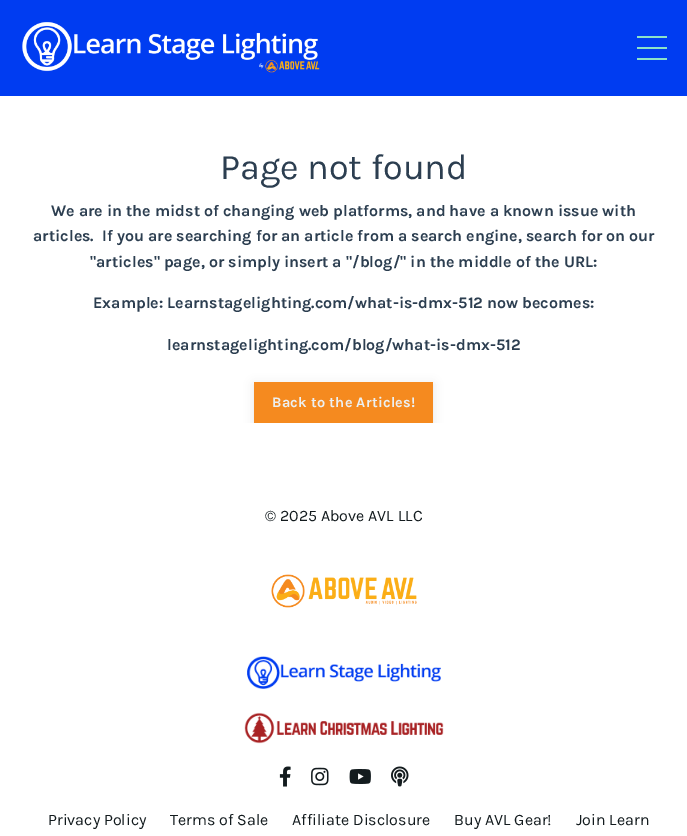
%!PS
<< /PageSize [687 836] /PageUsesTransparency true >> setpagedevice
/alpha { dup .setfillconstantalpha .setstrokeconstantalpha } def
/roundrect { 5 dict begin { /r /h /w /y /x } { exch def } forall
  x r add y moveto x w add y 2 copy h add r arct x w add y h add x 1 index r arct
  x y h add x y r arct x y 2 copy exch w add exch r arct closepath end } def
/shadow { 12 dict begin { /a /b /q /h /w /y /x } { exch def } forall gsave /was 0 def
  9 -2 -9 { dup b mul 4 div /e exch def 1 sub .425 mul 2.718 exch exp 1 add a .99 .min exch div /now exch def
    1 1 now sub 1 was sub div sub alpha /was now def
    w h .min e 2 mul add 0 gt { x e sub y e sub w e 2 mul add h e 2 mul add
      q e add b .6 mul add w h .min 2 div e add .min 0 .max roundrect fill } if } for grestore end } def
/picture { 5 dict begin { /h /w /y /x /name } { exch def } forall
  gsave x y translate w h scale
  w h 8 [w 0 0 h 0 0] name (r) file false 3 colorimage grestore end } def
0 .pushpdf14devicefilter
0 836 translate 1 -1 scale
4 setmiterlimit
1 setgray
0 0 687 836 rectfill
0 0.235 0.945 setrgbcolor
0 0 687 96 rectfill
(img1.rgb) 22 22 298 51 picture
0.549 0.886 0.784 setrgbcolor
637 36 30 2 rectfill
637 47 30 2 rectfill
637 58 30 2 rectfill
/Karla-Regular [36 0 0 -36 0 0] selectfont
0.173 0.243 0.314 setrgbcolor
220 179 moveto (Page not found) show
/Karla-Bold [16 0 0 -16 0 0] selectfont
51 216 moveto (We are in the midst of changing web platforms, and have a known issue with) show
33 241 moveto (articles.  If you are searching for an article from a search engine, search for on our) show
90 267 moveto ("articles" page, or simply insert a "/blog/" in the middle of the URL:) show
93 308 moveto (Example: Learnstagelighting.com/what-is-dmx-512 now becomes:) show
167 350 moveto (learnstagelighting.com/blog/what-is-dmx-512) show
gsave
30 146 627 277 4 roundrect clip newpath
0 setgray
254 384 179 41 0 5 0.1 shadow
grestore
0.961 0.541 0.122 setrgbcolor
254 382 179 41 rectfill
/Karla-Bold [14.5 0 0 -14.5 0 0] selectfont
0.925 0.941 0.945 setrgbcolor
272 407 moveto 0.25 0 (Back to the Articles!) ashow
/Karla-Regular [16 0 0 -16 0 0] selectfont
0.075 0.106 0.118 setrgbcolor
265 521 moveto (© 2025 Above AVL LLC) show
(img2.rgb) 271 574 146 34 picture
(img3.rgb) 247 656 194 33 picture
(img4.rgb) 244 712 200 32 picture
(img5.rgb) 279 766 12 21 picture
(img6.rgb) 311 767 18 19 picture
(img7.rgb) 349 769 22 15 picture
(img8.rgb) 391 766 18 21 picture
48 825 moveto (Privacy Policy) show
170 825 moveto (Terms of Sale) show
292 825 moveto (Affiliate Disclosure) show
454 825 moveto (Buy AVL Gear!) show
576 825 moveto (Join Learn) show
.poppdf14devicefilter showpage
